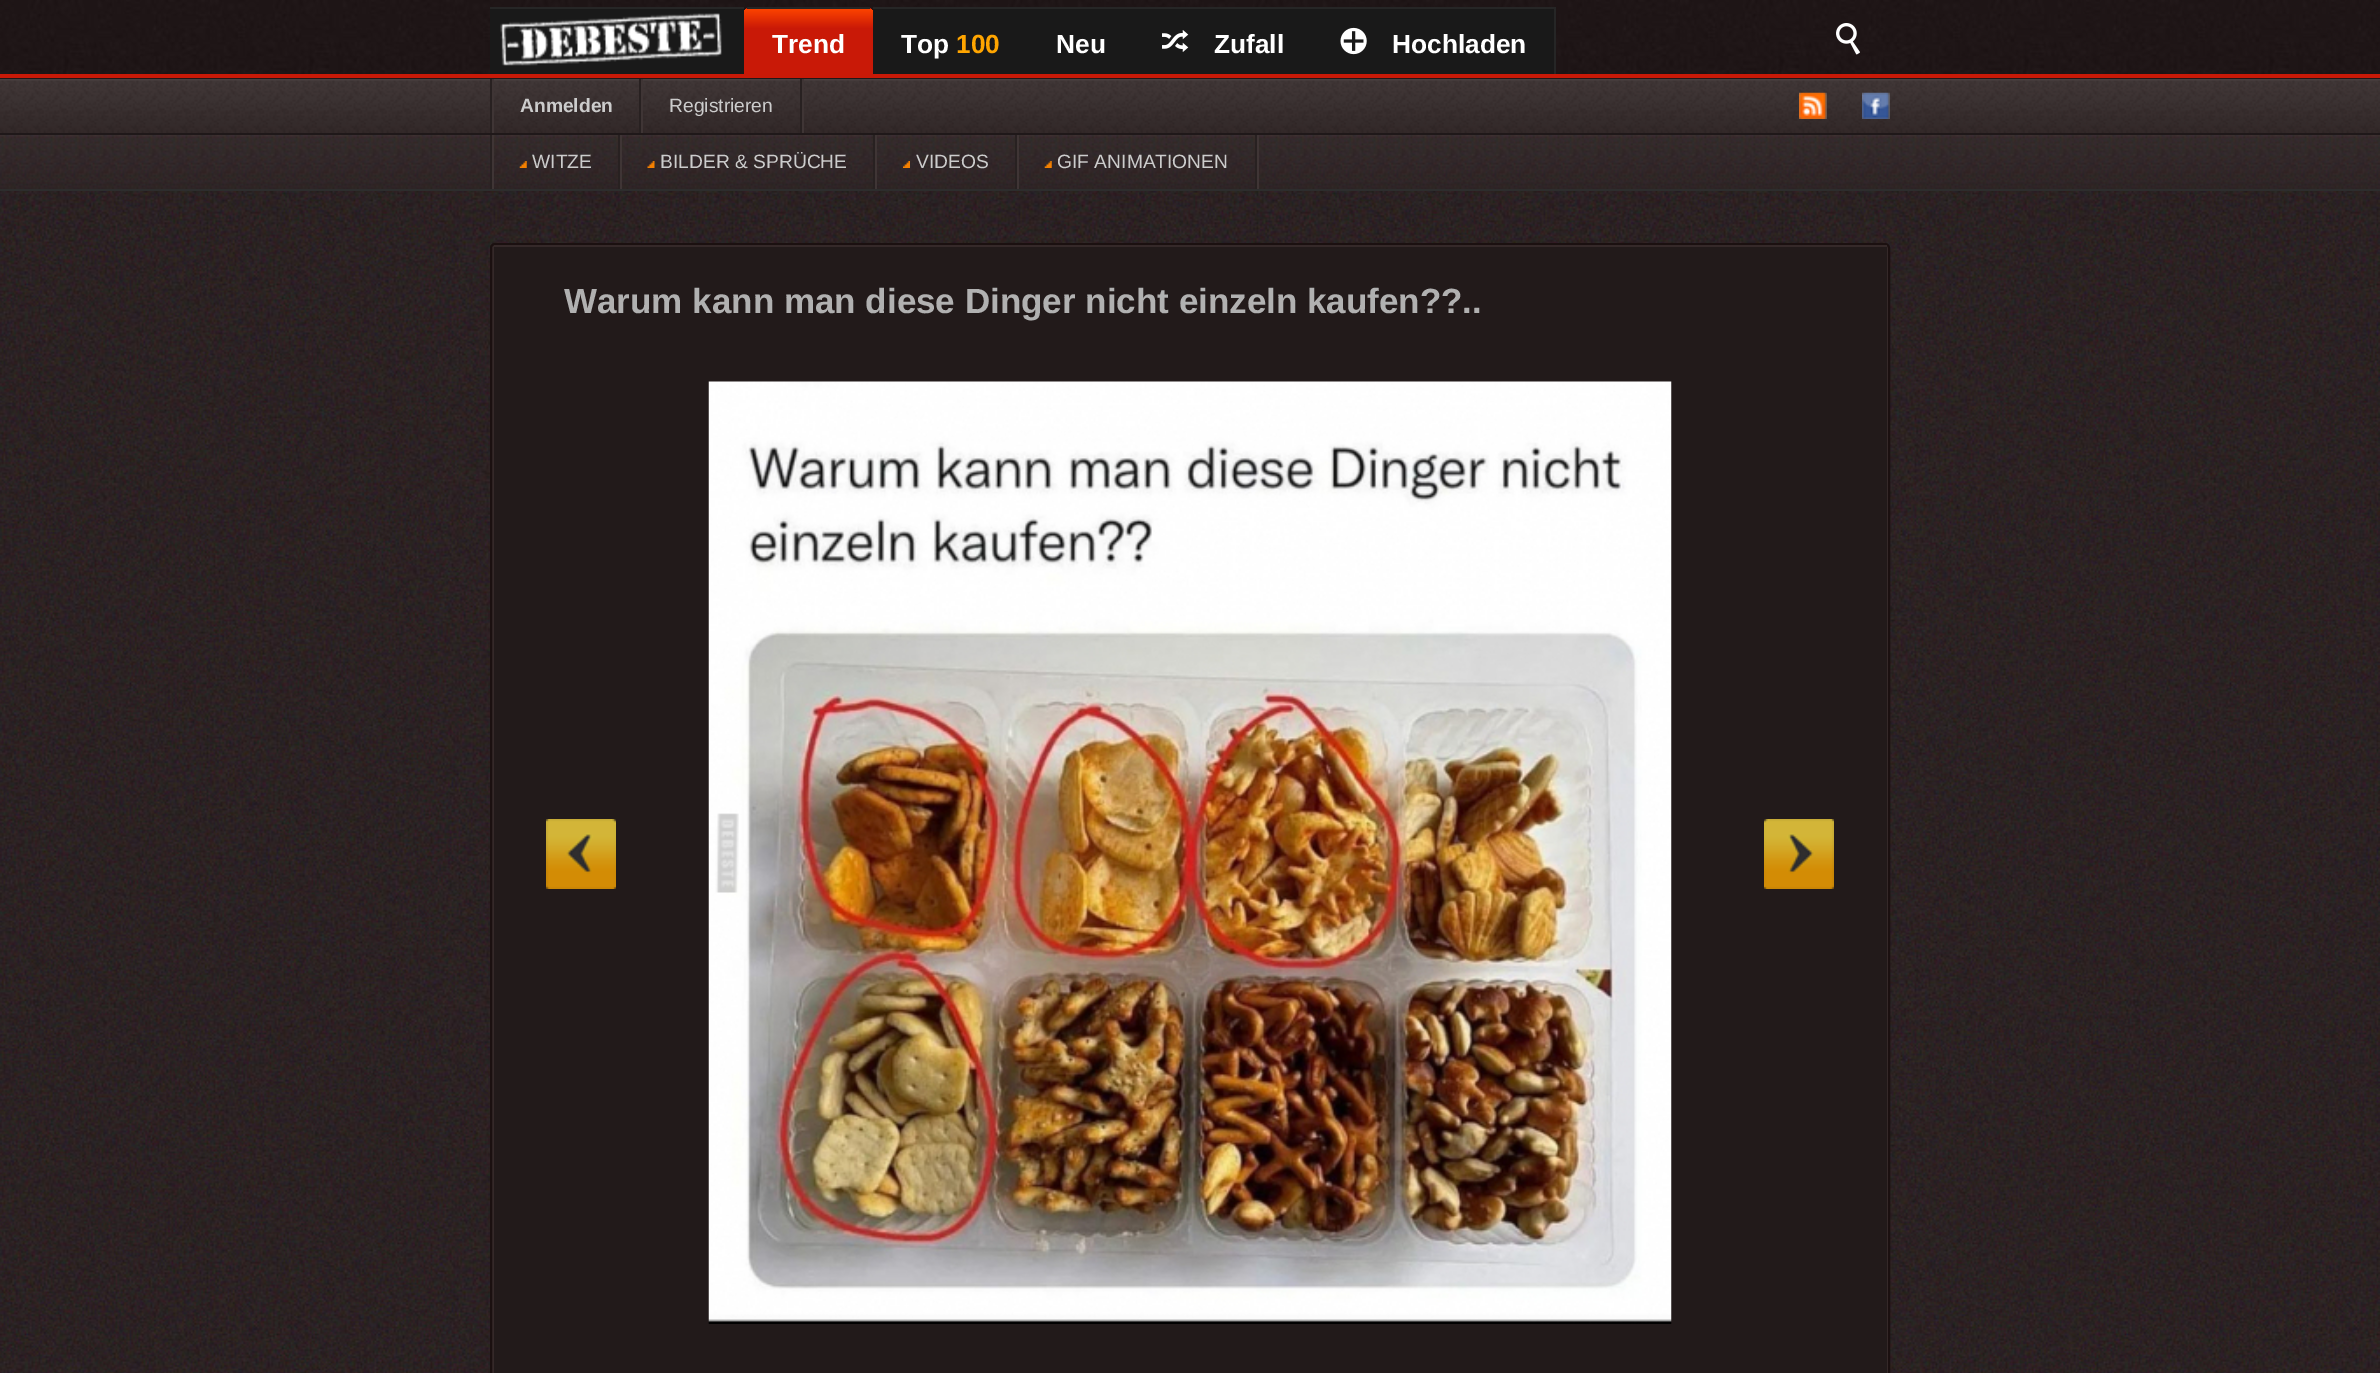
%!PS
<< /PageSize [2380 1373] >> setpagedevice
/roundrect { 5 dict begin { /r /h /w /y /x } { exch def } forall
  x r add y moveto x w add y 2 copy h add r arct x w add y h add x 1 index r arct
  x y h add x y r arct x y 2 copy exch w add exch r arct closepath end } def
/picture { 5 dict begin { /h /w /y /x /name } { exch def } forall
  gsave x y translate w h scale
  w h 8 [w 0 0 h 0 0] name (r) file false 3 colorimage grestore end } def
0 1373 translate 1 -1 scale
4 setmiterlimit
1 setgray
0 0 2380 1373 rectfill
(img1.rgb) 0 191 2380 1182 picture
(img2.rgb) 0 0 2380 74 picture
0.788 0.098 0.027 setrgbcolor
0 74 2380 4 rectfill
0.149 setgray
1554 7 2 67 rectfill
0.098 setgray
490 9 254 65 rectfill
0.149 setgray
490 7 254 2 rectfill
(img3.rgb) 500 13 222 53 picture
gsave
newpath 751 7 moveto 866 7 lineto 870 7 873 10 873 14 curveto 873 77 lineto 744 77 lineto 744 14 lineto 744 10 747 7 751 7 curveto closepath clip newpath
gsave newpath 744 8 moveto 873 8 lineto 873 9 lineto 744 9 lineto closepath clip newpath
<< /ShadingType 2 /ColorSpace /DeviceRGB /Coords [809 -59 809 9] /Extend [true true] /Function << /FunctionType 3 /Domain [0 1] /Functions [<< /FunctionType 2 /Domain [0 1] /C0 [0.988 0.263 0] /C1 [0.788 0.098 0.027] /N 1 >> << /FunctionType 2 /Domain [0 1] /C0 [0.788 0.098 0.027] /C1 [0.788 0.098 0.027] /N 1 >> << /FunctionType 2 /Domain [0 1] /C0 [0.788 0.098 0.027] /C1 [0.788 0.098 0.027] /N 1 >>] /Bounds [0.29 0.99] /Encode [0 1 0 1 0 1] >> >> shfill grestore
gsave newpath 744 9 moveto 873 9 lineto 873 74 lineto 744 74 lineto closepath clip newpath
<< /ShadingType 2 /ColorSpace /DeviceRGB /Coords [809 9 809 77] /Extend [true true] /Function << /FunctionType 3 /Domain [0 1] /Functions [<< /FunctionType 2 /Domain [0 1] /C0 [0.988 0.263 0] /C1 [0.788 0.098 0.027] /N 1 >> << /FunctionType 2 /Domain [0 1] /C0 [0.788 0.098 0.027] /C1 [0.788 0.098 0.027] /N 1 >> << /FunctionType 2 /Domain [0 1] /C0 [0.788 0.098 0.027] /C1 [0.788 0.098 0.027] /N 1 >>] /Bounds [0.29 0.99] /Encode [0 1 0 1 0 1] >> >> shfill grestore
grestore
747 7 123 2 rectfill
/LiberationSans-Bold [26.25 0 0 -26.25 0 0] selectfont
1 setgray
772 53 moveto (Trend) show
0.098 setgray
873 9 681 65 rectfill
0.149 setgray
873 7 681 2 rectfill
1 setgray
901 53 moveto (Top) show
1 0.647 0 setrgbcolor
956 53 moveto (100) show
1 setgray
1056 53 moveto (Neu) show
(img4.rgb) 1162 30 27 22 picture
1214 53 moveto (Zufall) show
(img5.rgb) 1340 27 27 28 picture
1392 53 moveto (Hochladen) show
(img6.rgb) 1836 23 24 32 picture
(img7.rgb) 0 79 2380 54 picture
0.122 0.094 0.098 setrgbcolor
0 78 2380 1 rectfill
0.247 0.208 0.208 setrgbcolor
802 79 2 54 rectfill
0.157 0.129 0.129 setrgbcolor
490 79 2 54 rectfill
639 79 2 54 rectfill
0.247 0.208 0.208 setrgbcolor
492 79 2 54 rectfill
/LiberationSans-Bold [19.25 0 0 -19.25 0 0] selectfont
0.8 setgray
520 112 moveto (Anmelden) show
0.157 0.129 0.129 setrgbcolor
800 79 2 54 rectfill
0.247 0.208 0.208 setrgbcolor
641 79 2 54 rectfill
/LiberationSans-Regular [19.25 0 0 -19.25 0 0] selectfont
0.8 setgray
669 112 moveto (Registrieren) show
(img8.rgb) 1799 92 28 27 picture
(img9.rgb) 1862 92 28 27 picture
(img10.rgb) 0 135 2380 54 picture
0.122 0.094 0.098 setrgbcolor
0 133 2380 2 rectfill
0.176 setgray
0 189 2380 2 rectfill
0.247 0.208 0.208 setrgbcolor
1257 135 2 54 rectfill
0.157 0.129 0.129 setrgbcolor
490 135 2 54 rectfill
618 135 2 54 rectfill
0.247 0.208 0.208 setrgbcolor
492 135 2 54 rectfill
(img11.rgb) 519 161 8 7 picture
0.8 setgray
532 168 moveto (WITZE) show
0.157 0.129 0.129 setrgbcolor
873 135 2 54 rectfill
0.247 0.208 0.208 setrgbcolor
620 135 2 54 rectfill
(img12.rgb) 647 161 8 7 picture
0.8 setgray
660 168 moveto (BILDER & SPRÜCHE) show
0.157 0.129 0.129 setrgbcolor
1015 135 2 54 rectfill
0.247 0.208 0.208 setrgbcolor
875 135 2 54 rectfill
(img13.rgb) 903 161 7 7 picture
0.8 setgray
916 168 moveto (VIDEOS) show
0.157 0.129 0.129 setrgbcolor
1255 135 2 54 rectfill
0.247 0.208 0.208 setrgbcolor
1017 135 2 54 rectfill
(img14.rgb) 1044 161 8 7 picture
0.8 setgray
1057 168 moveto (GIF ANIMATIONEN) show
0.208 0.161 0.161 setrgbcolor
491 244 1398 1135 4 roundrect gsave fill grestore
0.106 0.063 0.063 setrgbcolor
2 setlinewidth
stroke
gsave
492 245 1396 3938 4 roundrect clip newpath
0.133 0.102 0.102 setrgbcolor
494 245 1393 1128 rectfill
0.208 0.161 0.161 setrgbcolor
494 245 1393 2 rectfill
grestore
/LiberationSans-Bold [35 0 0 -35 0 0] selectfont
0.694 setgray
564 313 moveto (Warum kann man diese Dinger nicht einzeln kaufen??..) show
(img15.rgb) 546 819 70 70 picture
(img16.rgb) 708 381 964 943 picture
(img17.rgb) 1764 819 70 70 picture
showpage
